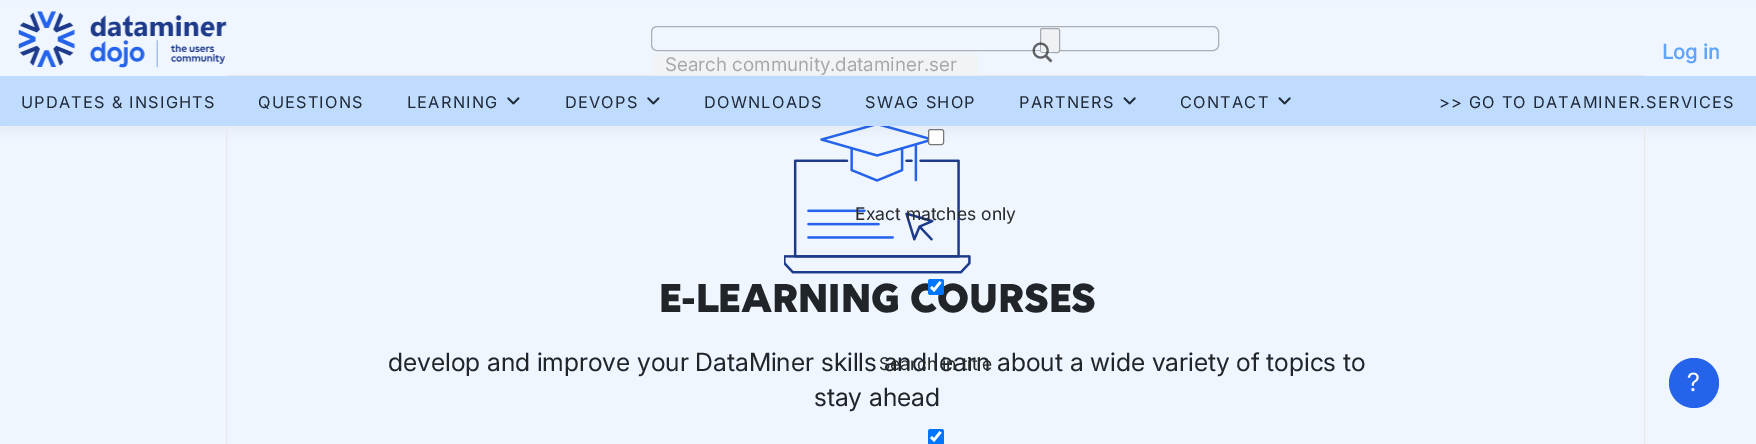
%!PS
<< /PageSize [1756 444] /PageUsesTransparency true >> setpagedevice
/alpha { dup .setfillconstantalpha .setstrokeconstantalpha } def
/roundrect { 5 dict begin { /r /h /w /y /x } { exch def } forall
  x r add y moveto x w add y 2 copy h add r arct x w add y h add x 1 index r arct
  x y h add x y r arct x y 2 copy exch w add exch r arct closepath end } def
/shadow { 12 dict begin { /a /b /q /h /w /y /x } { exch def } forall gsave /was 0 def
  9 -2 -9 { dup b mul 4 div /e exch def 1 sub .425 mul 2.718 exch exp 1 add a .99 .min exch div /now exch def
    1 1 now sub 1 was sub div sub alpha /was now def
    w h .min e 2 mul add 0 gt { x e sub y e sub w e 2 mul add h e 2 mul add
      q e add b .6 mul add w h .min 2 div e add .min 0 .max roundrect fill } if } for grestore end } def
/picture { 5 dict begin { /h /w /y /x /name } { exch def } forall
  gsave x y translate w h scale
  w h 8 [w 0 0 h 0 0] name (r) file false 3 colorimage grestore end } def
0 .pushpdf14devicefilter
0 444 translate 1 -1 scale
4 setmiterlimit
0.937 0.965 1 setrgbcolor
0 0 1756 444 rectfill
(img5.rgb) 784 126 187 148 picture
0.196 setgray
0 6 1756 125 0 6 0.06 shadow
0.937 0.965 1 setrgbcolor
0 1 1756 75 rectfill
(img1.rgb) 18 11 209 57 picture
/Inter-Bold [20 0 0 -20 0 0] selectfont
0.376 0.647 0.98 setrgbcolor
1662 59 moveto (Log in) show
0.675 0.686 0.702 setrgbcolor
651.5 26.5 567 24 5.5 roundrect stroke
0.937 0.949 0.961 setrgbcolor
1040.5 28.5 19 24 2 roundrect gsave fill grestore
0.651 0.663 0.678 setrgbcolor
stroke
(img2.rgb) 1032 42 21 21 picture
0.914 setgray
226.5 75.5 1418 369 rectstroke
0.6 alpha
0.949 setgray
653 53 325 23 rectfill
/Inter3-Regular [18.75 0 0 -18.75 0 0] selectfont
1 alpha
0.651 0.663 0.675 setrgbcolor
665 71 moveto (Search community.dataminer.ser) show
1 setgray
928.5 129.5 15 15 2 roundrect gsave fill grestore
0.463 setgray
stroke
/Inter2-Regular [17.5 0 0 -17.5 0 0] selectfont
0.161 0.169 0.173 setrgbcolor
855 220 moveto (Exact matches only) show
/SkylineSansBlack-Black [43.75 0 0 -43.75 0 0] selectfont
0.129 0.145 0.161 setrgbcolor
659 312 moveto -0.25 0 (E-LEARNING COURSES) ashow
0 0.459 1 setrgbcolor
928 279 16 16 2.5 roundrect fill
1 setgray
2.6 setlinewidth
newpath 931 287 moveto 934 290 lineto 940.5 282 lineto stroke
/Inter-Regular [25 0 0 -25 0 0] selectfont
0.129 0.145 0.161 setrgbcolor
388 371 moveto (develop and improve your DataMiner skills and learn about a wide variety of topics to) show
/Inter2-Regular [17.5 0 0 -17.5 0 0] selectfont
0.161 0.169 0.173 setrgbcolor
879 370 moveto (Search in title) show
0 0.459 1 setrgbcolor
928 429 16 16 2.5 roundrect fill
1 setgray
newpath 931 437 moveto 934 440 lineto 940.5 432 lineto stroke
0.749 0.859 0.996 setrgbcolor
0 76 1756 50 rectfill
/Inter2-Regular [16.25 0 0 -16.25 0 0] selectfont
0.122 0.161 0.216 setrgbcolor
21 108 moveto 1.25 0 (UPDATES & INSIGHTS) ashow
258 108 moveto 1.25 0 (QUESTIONS) ashow
407 108 moveto 1.25 0 (LEARNING) ashow
(img3.rgb) 507 97 13 8 picture
565 108 moveto 1.25 0 (DEVOPS) ashow
(img3.rgb) 647 97 13 8 picture
704 108 moveto 1.25 0 (DOWNLOADS) ashow
865 108 moveto 1.25 0 (SWAG SHOP) ashow
1019 108 moveto 1.25 0 (PARTNERS) ashow
(img4.rgb) 1123 97 13 8 picture
1180 108 moveto 1.25 0 (CONTACT) ashow
(img4.rgb) 1278 97 13 8 picture
1439 108 moveto 1.25 0 (>> GO TO DATAMINER.SERVICES) ashow
/Inter-Regular [25 0 0 -25 0 0] selectfont
0.129 0.145 0.161 setrgbcolor
814 406 moveto (stay ahead) show
0.145 0.388 0.922 setrgbcolor
newpath 1694 383 25 0 360 arc closepath fill
1 setgray
1687 391 moveto (?) show
.poppdf14devicefilter showpage
